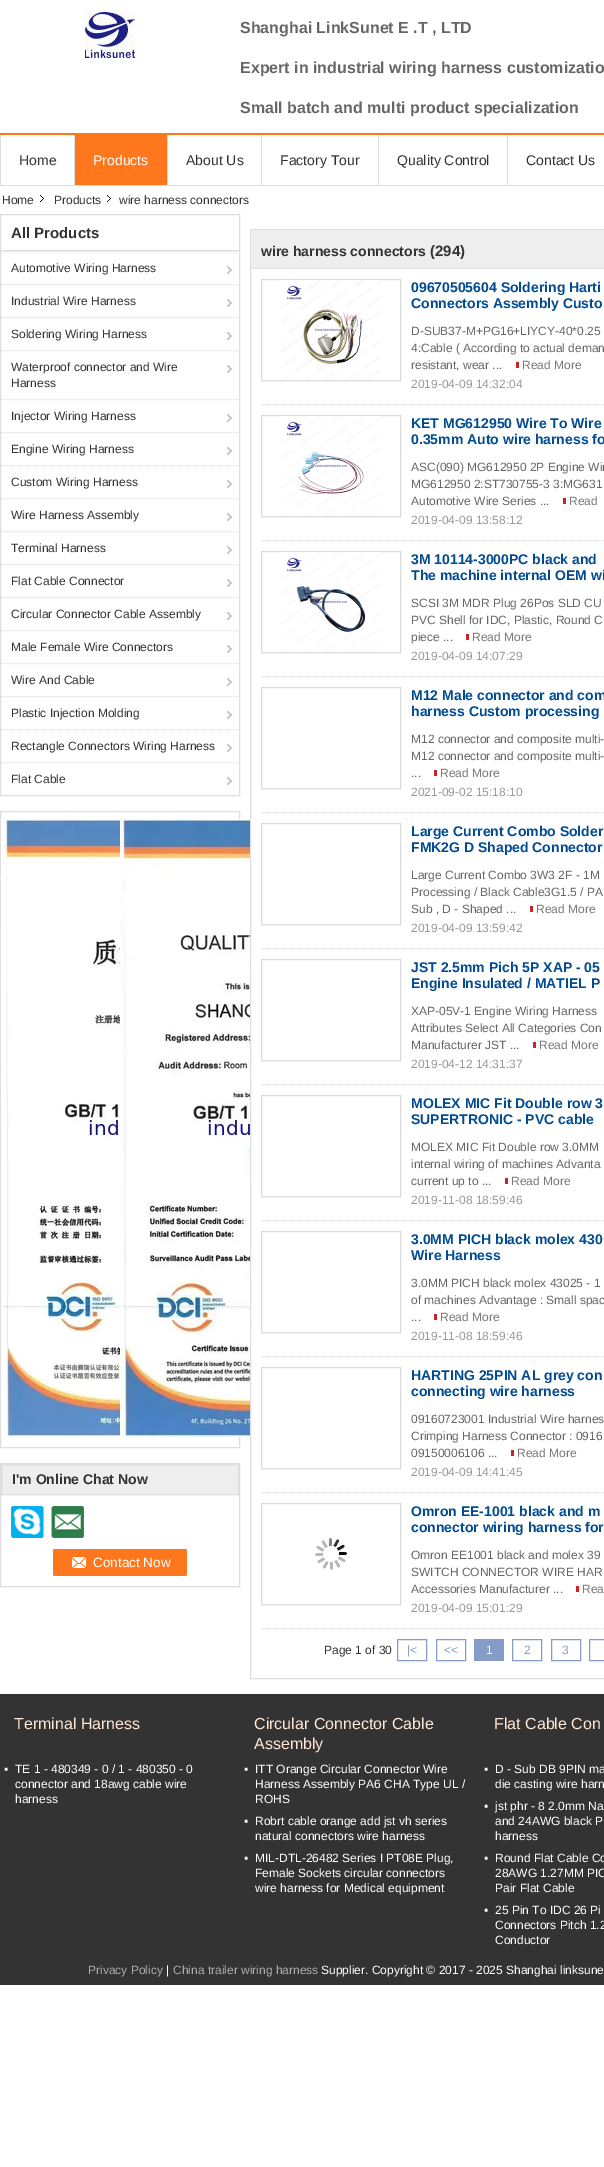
%!PS
<< /PageSize [604 2167] >> setpagedevice
/roundrect { 5 dict begin { /r /h /w /y /x } { exch def } forall
  x r add y moveto x w add y 2 copy h add r arct x w add y h add x 1 index r arct
  x y h add x y r arct x y 2 copy exch w add exch r arct closepath end } def
/picture { 5 dict begin { /h /w /y /x /name } { exch def } forall
  gsave x y translate w h scale
  w h 8 [w 0 0 h 0 0] name (r) file false 3 colorimage grestore end } def
0 2167 translate 1 -1 scale
4 setmiterlimit
1 setgray
0 0 604 2167 rectfill
1 0.467 0.11 setrgbcolor
0 133 604 2 rectfill
(img1.rgb) 85 12 50 46 picture
/LiberationSans-Bold [16 0 0 -16 0 0] selectfont
0.4 setgray
240 33 moveto (Shanghai LinkSunet E .T , LTD) show
240 73 moveto (Expert in industrial wiring harness customizatio) show
240 113 moveto (Small batch and multi product specialization) show
0.871 setgray
0 185 604 1 rectfill
0 135 1 50 rectfill
/LiberationSans-Regular [14 0 0 -14 0 0] selectfont
0.2 setgray
19 165 moveto (Home) show
1 0.467 0.11 setrgbcolor
75 135 92 50 rectfill
0.871 setgray
74 135 1 50 rectfill
1 setgray
93 165 moveto (Products) show
0.871 setgray
167 135 1 50 rectfill
0.2 setgray
186 165 moveto (About Us) show
0.871 setgray
261 135 1 50 rectfill
0.2 setgray
280 165 moveto (Factory Tour) show
0.871 setgray
378 135 1 50 rectfill
0.2 setgray
397 165 moveto (Quality Control) show
0.871 setgray
507 135 1 50 rectfill
0.2 setgray
526 165 moveto (Contact Us) show
(img2.rgb) 40 195 4 7 picture
/LiberationSans-Regular [12 0 0 -12 0 0] selectfont
2 204 moveto (Home) show
(img3.rgb) 107 195 5 7 picture
54 204 moveto (Products) show
119 204 moveto (wire harness connectors) show
0.871 setgray
0.5 214.5 239 581 rectstroke
1 250 238 1 rectfill
/LiberationSans-Bold [15 0 0 -15 0 0] selectfont
0.2 setgray
11 238 moveto (All Products) show
(img4.rgb) 227 266 5 8 picture
0.871 setgray
[1 1] 0 setdash
newpath 1 251.5 moveto 239 251.5 lineto stroke
/LiberationSans-Regular [12 0 0 -12 0 0] selectfont
0.2 setgray
11 272 moveto (Automotive Wiring Harness) show
(img4.rgb) 227 299 5 8 picture
0.871 setgray
newpath 1 284.5 moveto 239 284.5 lineto stroke
0.2 setgray
11 305 moveto (Industrial Wire Harness) show
(img4.rgb) 227 332 5 8 picture
0.871 setgray
newpath 1 317.5 moveto 239 317.5 lineto stroke
0.2 setgray
11 338 moveto (Soldering Wiring Harness) show
(img4.rgb) 227 365 5 8 picture
0.871 setgray
newpath 1 350.5 moveto 239 350.5 lineto stroke
0.2 setgray
11 371 moveto (Waterproof connector and Wire) show
11 387 moveto (Harness) show
(img4.rgb) 227 414 5 8 picture
0.871 setgray
newpath 1 399.5 moveto 239 399.5 lineto stroke
0.2 setgray
11 420 moveto (Injector Wiring Harness) show
(img4.rgb) 227 447 5 8 picture
0.871 setgray
newpath 1 432.5 moveto 239 432.5 lineto stroke
0.2 setgray
11 453 moveto (Engine Wiring Harness) show
(img4.rgb) 227 480 5 8 picture
0.871 setgray
newpath 1 465.5 moveto 239 465.5 lineto stroke
0.2 setgray
11 486 moveto (Custom Wiring Harness) show
(img4.rgb) 227 513 5 8 picture
0.871 setgray
newpath 1 498.5 moveto 239 498.5 lineto stroke
0.2 setgray
11 519 moveto (Wire Harness Assembly) show
(img4.rgb) 227 546 5 8 picture
0.871 setgray
newpath 1 531.5 moveto 239 531.5 lineto stroke
0.2 setgray
11 552 moveto (Terminal Harness) show
(img4.rgb) 227 579 5 8 picture
0.871 setgray
newpath 1 564.5 moveto 239 564.5 lineto stroke
0.2 setgray
11 585 moveto (Flat Cable Connector) show
(img4.rgb) 227 612 5 8 picture
0.871 setgray
newpath 1 597.5 moveto 239 597.5 lineto stroke
0.2 setgray
11 618 moveto (Circular Connector Cable Assembly) show
(img4.rgb) 227 645 5 8 picture
0.871 setgray
newpath 1 630.5 moveto 239 630.5 lineto stroke
0.2 setgray
11 651 moveto (Male Female Wire Connectors) show
(img4.rgb) 227 678 5 8 picture
0.871 setgray
newpath 1 663.5 moveto 239 663.5 lineto stroke
0.2 setgray
11 684 moveto (Wire And Cable) show
(img4.rgb) 227 711 5 8 picture
0.871 setgray
newpath 1 696.5 moveto 239 696.5 lineto stroke
0.2 setgray
11 717 moveto (Plastic Injection Molding) show
(img4.rgb) 227 744 5 8 picture
0.871 setgray
newpath 1 729.5 moveto 239 729.5 lineto stroke
0.2 setgray
11 750 moveto (Rectangle Connectors Wiring Harness) show
(img4.rgb) 227 777 5 8 picture
0.871 setgray
newpath 1 762.5 moveto 239 762.5 lineto stroke
0.2 setgray
11 783 moveto (Flat Cable) show
0.871 setgray
[] 0 setdash
0.5 811.5 239 636 rectstroke
(img5.rgb) 1 819 119 618 picture
(img6.rgb) 120 819 130 618 picture
0.5 1463.5 239 123 rectstroke
0.933 setgray
newpath 1.5 1464.5 moveto 238.5 1464.5 lineto 238.5 1494.5 lineto 1.5 1494.5 lineto closepath gsave fill grestore
0.871 setgray
stroke
/LiberationSans-Bold [14 0 0 -14 0 0] selectfont
0.2 setgray
12 1484 moveto (I'm Online Chat Now) show
(img7.rgb) 11 1506 34 32 picture
(img8.rgb) 51 1506 33 32 picture
1 0.467 0.11 setrgbcolor
53 1549 134 27 2 roundrect fill
(img9.rgb) 72 1557 14 11 picture
/LiberationSans-Regular [13.5 0 0 -13.5 0 0] selectfont
1 setgray
93 1567 moveto (Contact Now) show
0.871 setgray
250.5 229.5 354 1449 rectstroke
0.933 setgray
251 230 353 38 rectfill
0.871 setgray
251 268 353 1 rectfill
/LiberationSans-Bold [14 0 0 -14 0 0] selectfont
0.2 setgray
261 256 moveto (wire harness connectors) show
/LiberationSans-Bold [15 0 0 -15 0 0] selectfont
430 256 moveto (\(294\)) show
0.863 setgray
[1 1] 0 setdash
newpath 261 404.5 moveto 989 404.5 lineto stroke
[] 0 setdash
261.5 279.5 139 101 rectstroke
(img10.rgb) 281 280 100 100 picture
/LiberationSans-Bold [14 0 0 -14 0 0] selectfont
0 0.294 0.569 setrgbcolor
411 292 moveto (09670505604 Soldering Harti) show
411 308 moveto (Connectors Assembly Custo) show
/LiberationSans-Regular [12 0 0 -12 0 0] selectfont
0.4 setgray
411 335 moveto (D-SUB37-M+PG16+LIYCY-40*0.25) show
411 352 moveto (4:Cable \( According to actual deman) show
411 369 moveto (resistant, wear ...) show
0.471 setgray
522 369 moveto (Read More) show
0.788 0.141 0.169 setrgbcolor
516 362 3 6 rectfill
0.6 setgray
411 388 moveto (2019-04-09 14:32:04) show
0.863 setgray
[1 1] 0 setdash
newpath 261 540.5 moveto 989 540.5 lineto stroke
[] 0 setdash
261.5 415.5 139 101 rectstroke
(img11.rgb) 281 416 100 100 picture
/LiberationSans-Bold [14 0 0 -14 0 0] selectfont
0 0.294 0.569 setrgbcolor
411 428 moveto (KET MG612950 Wire To Wire) show
411 444 moveto (0.35mm Auto wire harness fo) show
/LiberationSans-Regular [12 0 0 -12 0 0] selectfont
0.4 setgray
411 471 moveto (ASC\(090\) MG612950 2P Engine Wir) show
411 488 moveto (MG612950 2:ST730755-3 3:MG631) show
411 505 moveto (Automotive Wire Series ...) show
0.471 setgray
569 505 moveto (Read) show
0.788 0.141 0.169 setrgbcolor
563 498 3 6 rectfill
0.6 setgray
411 524 moveto (2019-04-09 13:58:12) show
0.863 setgray
[1 1] 0 setdash
newpath 261 676.5 moveto 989 676.5 lineto stroke
[] 0 setdash
261.5 551.5 139 101 rectstroke
(img12.rgb) 281 552 100 100 picture
/LiberationSans-Bold [14 0 0 -14 0 0] selectfont
0 0.294 0.569 setrgbcolor
411 564 moveto (3M 10114-3000PC black and) show
411 580 moveto (The machine internal OEM wi) show
/LiberationSans-Regular [12 0 0 -12 0 0] selectfont
0.4 setgray
411 607 moveto (SCSI 3M MDR Plug 26Pos SLD CU) show
411 624 moveto (PVC Shell for IDC, Plastic, Round C) show
411 641 moveto (piece ...) show
0.471 setgray
472 641 moveto (Read More) show
0.788 0.141 0.169 setrgbcolor
466 634 3 6 rectfill
0.6 setgray
411 660 moveto (2019-04-09 14:07:29) show
0.863 setgray
[1 1] 0 setdash
newpath 261 812.5 moveto 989 812.5 lineto stroke
[] 0 setdash
261.5 687.5 139 101 rectstroke
/LiberationSans-Bold [14 0 0 -14 0 0] selectfont
0 0.294 0.569 setrgbcolor
411 700 moveto (M12 Male connector and com) show
411 716 moveto (harness Custom processing) show
/LiberationSans-Regular [12 0 0 -12 0 0] selectfont
0.4 setgray
411 743 moveto (M12 connector and composite multi-) show
411 760 moveto (M12 connector and composite multi-) show
411 777 moveto (...) show
0.471 setgray
440 777 moveto (Read More) show
0.788 0.141 0.169 setrgbcolor
434 770 3 6 rectfill
0.6 setgray
411 796 moveto (2021-09-02 15:18:10) show
0.863 setgray
[1 1] 0 setdash
newpath 261 948.5 moveto 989 948.5 lineto stroke
[] 0 setdash
261.5 823.5 139 101 rectstroke
/LiberationSans-Bold [14 0 0 -14 0 0] selectfont
0 0.294 0.569 setrgbcolor
411 836 moveto (Large Current Combo Solder) show
411 852 moveto (FMK2G D Shaped Connector) show
/LiberationSans-Regular [12 0 0 -12 0 0] selectfont
0.4 setgray
411 879 moveto (Large Current Combo 3W3 2F - 1M) show
411 896 moveto (Processing / Black Cable3G1.5 / PA) show
411 913 moveto (Sub , D - Shaped ...) show
0.471 setgray
536 913 moveto (Read More) show
0.788 0.141 0.169 setrgbcolor
530 906 3 6 rectfill
0.6 setgray
411 932 moveto (2019-04-09 13:59:42) show
0.863 setgray
[1 1] 0 setdash
newpath 261 1084.5 moveto 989 1084.5 lineto stroke
[] 0 setdash
261.5 959.5 139 101 rectstroke
/LiberationSans-Bold [14 0 0 -14 0 0] selectfont
0 0.294 0.569 setrgbcolor
411 972 moveto (JST 2.5mm Pich 5P XAP - 05) show
411 988 moveto (Engine Insulated / MATIEL P) show
/LiberationSans-Regular [12 0 0 -12 0 0] selectfont
0.4 setgray
411 1015 moveto (XAP-05V-1 Engine Wiring Harness) show
411 1032 moveto (Attributes Select All Categories Con) show
411 1049 moveto (Manufacturer JST ...) show
0.471 setgray
539 1049 moveto (Read More) show
0.788 0.141 0.169 setrgbcolor
533 1042 3 6 rectfill
0.6 setgray
411 1068 moveto (2019-04-12 14:31:37) show
0.863 setgray
[1 1] 0 setdash
newpath 261 1220.5 moveto 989 1220.5 lineto stroke
[] 0 setdash
261.5 1095.5 139 101 rectstroke
/LiberationSans-Bold [14 0 0 -14 0 0] selectfont
0 0.294 0.569 setrgbcolor
411 1108 moveto (MOLEX MIC Fit Double row 3) show
411 1124 moveto (SUPERTRONIC - PVC cable) show
/LiberationSans-Regular [12 0 0 -12 0 0] selectfont
0.4 setgray
411 1151 moveto (MOLEX MIC Fit Double row 3.0MM) show
411 1168 moveto (internal wiring of machines Advanta) show
411 1185 moveto (current up to ...) show
0.471 setgray
511 1185 moveto (Read More) show
0.788 0.141 0.169 setrgbcolor
505 1178 3 6 rectfill
0.6 setgray
411 1204 moveto (2019-11-08 18:59:46) show
0.863 setgray
[1 1] 0 setdash
newpath 261 1356.5 moveto 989 1356.5 lineto stroke
[] 0 setdash
261.5 1231.5 139 101 rectstroke
/LiberationSans-Bold [14 0 0 -14 0 0] selectfont
0 0.294 0.569 setrgbcolor
411 1244 moveto (3.0MM PICH black molex 430) show
411 1260 moveto (Wire Harness) show
/LiberationSans-Regular [12 0 0 -12 0 0] selectfont
0.4 setgray
411 1287 moveto (3.0MM PICH black molex 43025 - 1) show
411 1304 moveto (of machines Advantage : Small spac) show
411 1321 moveto (...) show
0.471 setgray
440 1321 moveto (Read More) show
0.788 0.141 0.169 setrgbcolor
434 1314 3 6 rectfill
0.6 setgray
411 1340 moveto (2019-11-08 18:59:46) show
0.863 setgray
[1 1] 0 setdash
newpath 261 1492.5 moveto 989 1492.5 lineto stroke
[] 0 setdash
261.5 1367.5 139 101 rectstroke
/LiberationSans-Bold [14 0 0 -14 0 0] selectfont
0 0.294 0.569 setrgbcolor
411 1380 moveto (HARTING 25PIN AL grey con) show
411 1396 moveto (connecting wire harness) show
/LiberationSans-Regular [12 0 0 -12 0 0] selectfont
0.4 setgray
411 1423 moveto (09160723001 Industrial Wire harnes) show
411 1440 moveto (Crimping Harness Connector : 0916) show
411 1457 moveto (09150006106 ...) show
0.471 setgray
517 1457 moveto (Read More) show
0.788 0.141 0.169 setrgbcolor
511 1450 3 6 rectfill
0.6 setgray
411 1476 moveto (2019-04-09 14:41:45) show
0.863 setgray
[1 1] 0 setdash
newpath 261 1628.5 moveto 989 1628.5 lineto stroke
[] 0 setdash
261.5 1503.5 139 101 rectstroke
(img13.rgb) 315 1538 32 32 picture
/LiberationSans-Bold [14 0 0 -14 0 0] selectfont
0 0.294 0.569 setrgbcolor
411 1516 moveto (Omron EE-1001 black and m) show
411 1532 moveto (connector wiring harness for) show
/LiberationSans-Regular [12 0 0 -12 0 0] selectfont
0.4 setgray
411 1559 moveto (Omron EE1001 black and molex 39) show
411 1576 moveto (SWITCH CONNECTOR WIRE HAR) show
411 1593 moveto (Accessories Manufacturer ...) show
0.471 setgray
582 1593 moveto (Rea) show
0.788 0.141 0.169 setrgbcolor
576 1586 3 6 rectfill
0.6 setgray
411 1612 moveto (2019-04-09 15:01:29) show
0.2 setgray
324 1654 moveto (Page 1 of 30) show
0.518 0.612 0.776 setrgbcolor
397.5 1639.5 29 21 rectstroke
407 1654 moveto (|<) show
436.5 1639.5 29 21 rectstroke
444 1654 moveto (<<) show
474 1639 30 22 rectfill
1 setgray
486 1654 moveto (1) show
0.518 0.612 0.776 setrgbcolor
512.5 1639.5 29 21 rectstroke
524 1654 moveto (2) show
551.5 1639.5 29 21 rectstroke
562 1654 moveto (3) show
589.5 1639.5 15 21 rectstroke
0.2 setgray
0 1694 604 291 rectfill
/LiberationSans-Regular [16 0 0 -16 0 0] selectfont
1 0.902 0.835 setrgbcolor
14 1729 moveto (Terminal Harness) show
/LiberationSans-Regular [12 0 0 -12 0 0] selectfont
1 setgray
4 1773 moveto (▪) show
15 1773 moveto (TE 1 - 480349 - 0 / 1 - 480350 - 0) show
15 1788 moveto (connector and 18awg cable wire) show
15 1803 moveto (harness) show
/LiberationSans-Regular [16 0 0 -16 0 0] selectfont
1 0.902 0.835 setrgbcolor
254 1729 moveto (Circular Connector Cable) show
254 1749 moveto (Assembly) show
/LiberationSans-Regular [12 0 0 -12 0 0] selectfont
1 setgray
244 1773 moveto (▪) show
255 1773 moveto (ITT Orange Circular Connector Wire) show
255 1788 moveto (Harness Assembly PA6 CHA Type UL /) show
255 1803 moveto (ROHS) show
244 1825 moveto (▪) show
255 1825 moveto (Robrt cable orange add jst vh series) show
255 1840 moveto (natural connectors wire harness) show
244 1862 moveto (▪) show
255 1862 moveto (MIL-DTL-26482 Series I PT08E Plug,) show
255 1877 moveto (Female Sockets circular connectors) show
255 1892 moveto (wire harness for Medical equipment) show
/LiberationSans-Regular [16 0 0 -16 0 0] selectfont
1 0.902 0.835 setrgbcolor
494 1729 moveto (Flat Cable Con) show
/LiberationSans-Regular [12 0 0 -12 0 0] selectfont
1 setgray
484 1773 moveto (▪) show
495 1773 moveto (D - Sub DB 9PIN ma) show
495 1788 moveto (die casting wire harn) show
484 1810 moveto (▪) show
495 1810 moveto (jst phr - 8 2.0mm Na) show
495 1825 moveto (and 24AWG black P) show
495 1840 moveto (harness) show
484 1862 moveto (▪) show
495 1862 moveto (Round Flat Cable Co) show
495 1877 moveto (28AWG 1.27MM PIC) show
495 1892 moveto (Pair Flat Cable) show
484 1914 moveto (▪) show
495 1914 moveto (25 Pin To IDC 26 Pi) show
495 1929 moveto (Connectors Pitch 1.2) show
495 1944 moveto (Conductor) show
0.678 setgray
88 1974 moveto (Privacy Policy) show
1 setgray
166 1974 moveto (|) show
0.678 setgray
173 1974 moveto (China trailer wiring harness) show
1 setgray
321 1974 moveto (Supplier. Copyright © 2017 - 2025 Shanghai linksune) show
showpage
